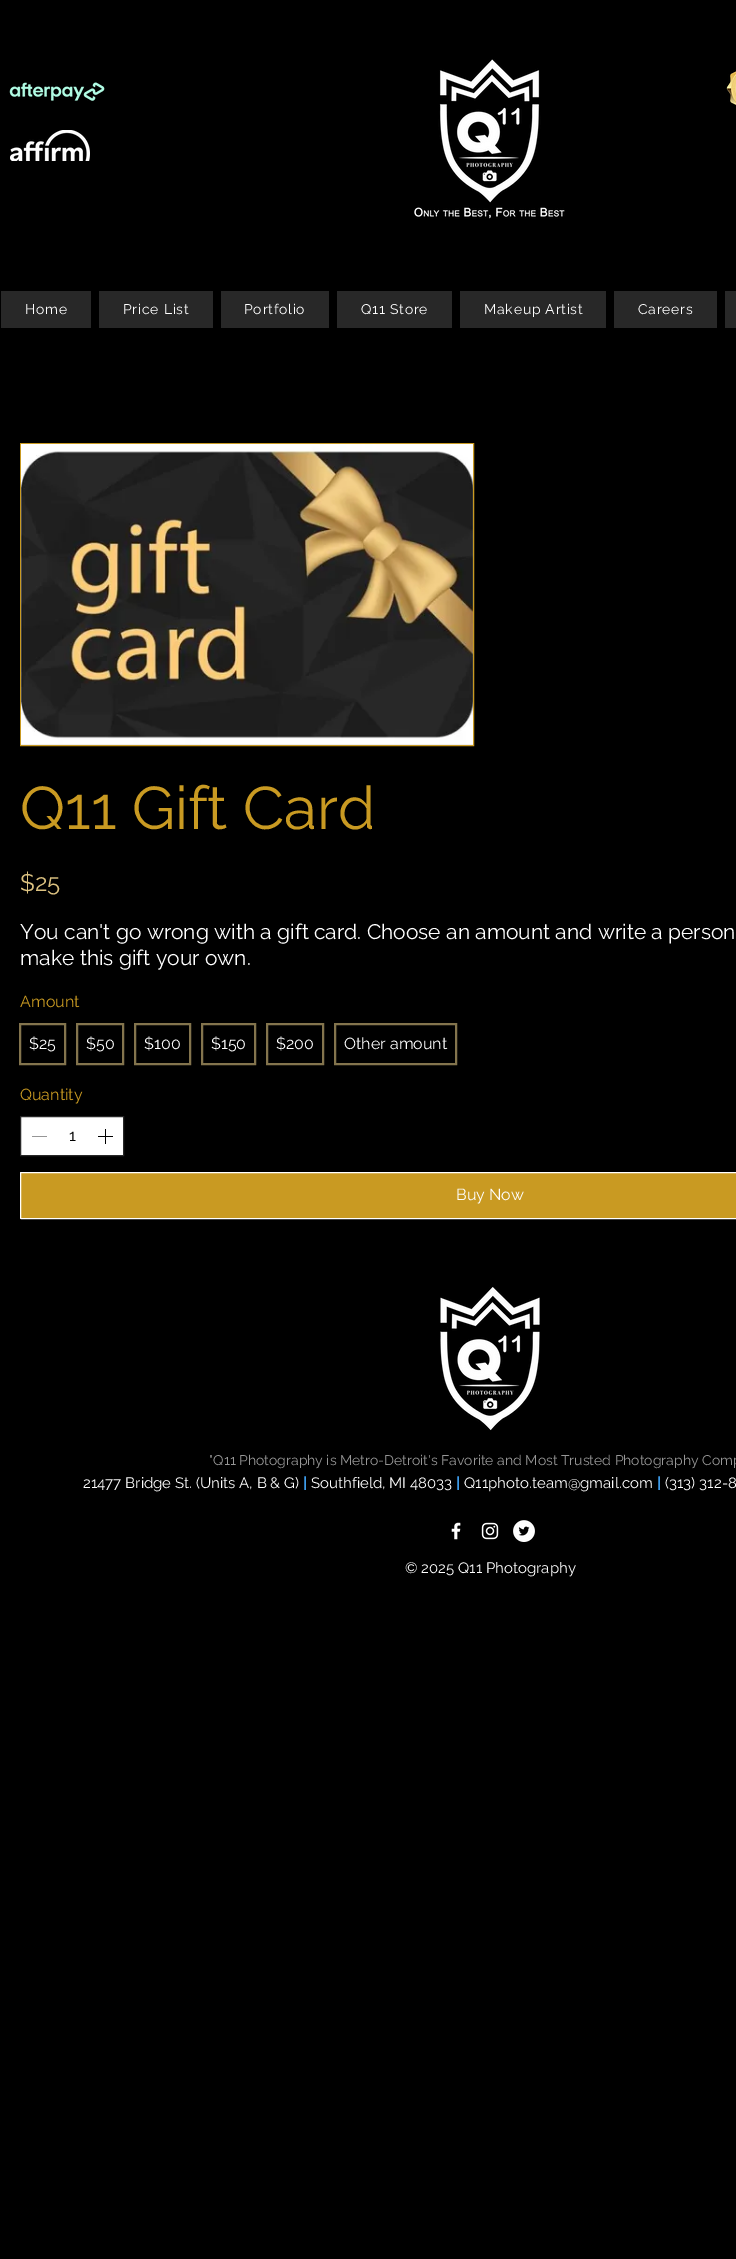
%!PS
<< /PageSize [736 2259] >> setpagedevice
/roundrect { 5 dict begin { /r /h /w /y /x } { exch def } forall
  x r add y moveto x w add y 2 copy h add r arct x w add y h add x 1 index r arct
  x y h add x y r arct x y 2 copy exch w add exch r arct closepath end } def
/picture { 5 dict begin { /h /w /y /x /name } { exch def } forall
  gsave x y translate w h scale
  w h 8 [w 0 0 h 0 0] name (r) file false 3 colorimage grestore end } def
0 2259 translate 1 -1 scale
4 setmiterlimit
0 setgray
0 0 736 2259 rectfill
(img1.rgb) 9 82 96 19 picture
(img2.rgb) 414 59 151 160 picture
(img3.rgb) 726 69 10 36 picture
(img4.rgb) 10 130 80 31 picture
0.157 setgray
1 291 90 37 rectfill
/Raleway-Regular [14 0 0 -14 0 0] selectfont
1 setgray
25 314 moveto 0.75 0 (Home) ashow
0.157 setgray
99 291 114 37 rectfill
1 setgray
123 314 moveto 0.75 0 (Price List) ashow
0.157 setgray
221 291 108 37 rectfill
1 setgray
244 314 moveto 0.75 0 (Portfolio) ashow
0.157 setgray
337 291 115 37 rectfill
1 setgray
361 314 moveto 0.75 0 (Q11 Store) ashow
0.157 setgray
460 291 146 37 rectfill
1 setgray
484 314 moveto 0.75 0 (Makeup Artist) ashow
0.157 setgray
614 291 103 37 rectfill
1 setgray
638 314 moveto 0.75 0 (Careers) ashow
0.157 setgray
725 291 11 37 rectfill
0.788 0.604 0.133 setrgbcolor
20.5 443.5 453 302 rectstroke
(img5.rgb) 21 444 452 301 picture
/Raleway-Regular [60 0 0 -60 0 0] selectfont
20 829 moveto (Q11 Gift Card) show
/Raleway-Regular [24 0 0 -24 0 0] selectfont
0.859 0.757 0.502 setrgbcolor
20 891 moveto ($25) show
/Raleway-Regular [21 0 0 -21 0 0] selectfont
1 setgray
20 939 moveto (You can't go wrong with a gift card. Choose an amount and write a person) show
20 965 moveto (make this gift your own.) show
/Raleway-Regular [16 0 0 -16 0 0] selectfont
0.788 0.604 0.133 setrgbcolor
20 1007 moveto (Amount) show
0.514 0.455 0.302 setrgbcolor
2 setlinewidth
20 1024 45 40 rectstroke
1 setgray
29 1049 moveto ($25) show
0.514 0.455 0.302 setrgbcolor
77 1024 46 40 rectstroke
1 setgray
86 1049 moveto ($50) show
0.514 0.455 0.302 setrgbcolor
135 1024 55 40 rectstroke
1 setgray
144 1049 moveto ($100) show
0.514 0.455 0.302 setrgbcolor
202 1024 53 40 rectstroke
1 setgray
211 1049 moveto ($150) show
0.514 0.455 0.302 setrgbcolor
267 1024 56 40 rectstroke
1 setgray
276 1049 moveto ($200) show
0.514 0.455 0.302 setrgbcolor
335 1024 121 40 rectstroke
1 setgray
344 1049 moveto (Other amount) show
0.788 0.604 0.133 setrgbcolor
20 1100 moveto (Quantity) show
1 setgray
newpath 20.5 1116.5 moveto 123.5 1116.5 lineto 123.5 1155.5 lineto 20.5 1155.5 lineto closepath gsave fill grestore
0.157 setgray
1 setlinewidth
stroke
0.588 setgray
32 1136 15 1 rectfill
0 setgray
69 1141 moveto (1) show
(img6.rgb) 98 1129 15 15 picture
0.788 0.604 0.133 setrgbcolor
20.5 1172.5 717 46 0.5 roundrect gsave fill grestore
1 setgray
stroke
456 1200 moveto (Buy Now) show
(img7.rgb) 440 1287 100 144 picture
/Raleway-Regular [14 0 0 -14 0 0] selectfont
0.588 setgray
209 1465 moveto ("Q11 Photography is Metro-Detroit's Favorite and Most Trusted Photography Comp) show
/Raleway-Regular [15 0 0 -15 0 0] selectfont
1 setgray
83 1488 moveto (21477 Bridge St. \(Units A, B & G\)) show
/Raleway-Bold [15 0 0 -15 0 0] selectfont
0.239 0.608 0.914 setrgbcolor
303 1488 moveto (|) show
/Raleway-Regular [15 0 0 -15 0 0] selectfont
1 setgray
311 1488 moveto (Southfield, MI 48033) show
/Raleway-Bold [15 0 0 -15 0 0] selectfont
0.239 0.608 0.914 setrgbcolor
456 1488 moveto (|) show
/Raleway-Regular [15 0 0 -15 0 0] selectfont
1 setgray
464 1488 moveto (Q11photo.team@gmail.com) show
/Raleway-Bold [15 0 0 -15 0 0] selectfont
0.239 0.608 0.914 setrgbcolor
657 1488 moveto (|) show
/Raleway-Regular [15 0 0 -15 0 0] selectfont
1 setgray
665 1488 moveto (\(313\) 312-8) show
(img8.rgb) 451 1522 10 18 picture
(img9.rgb) 481 1522 18 18 picture
(img10.rgb) 513 1520 22 22 picture
405 1573 moveto (© 2025 Q11 Photography) show
showpage
